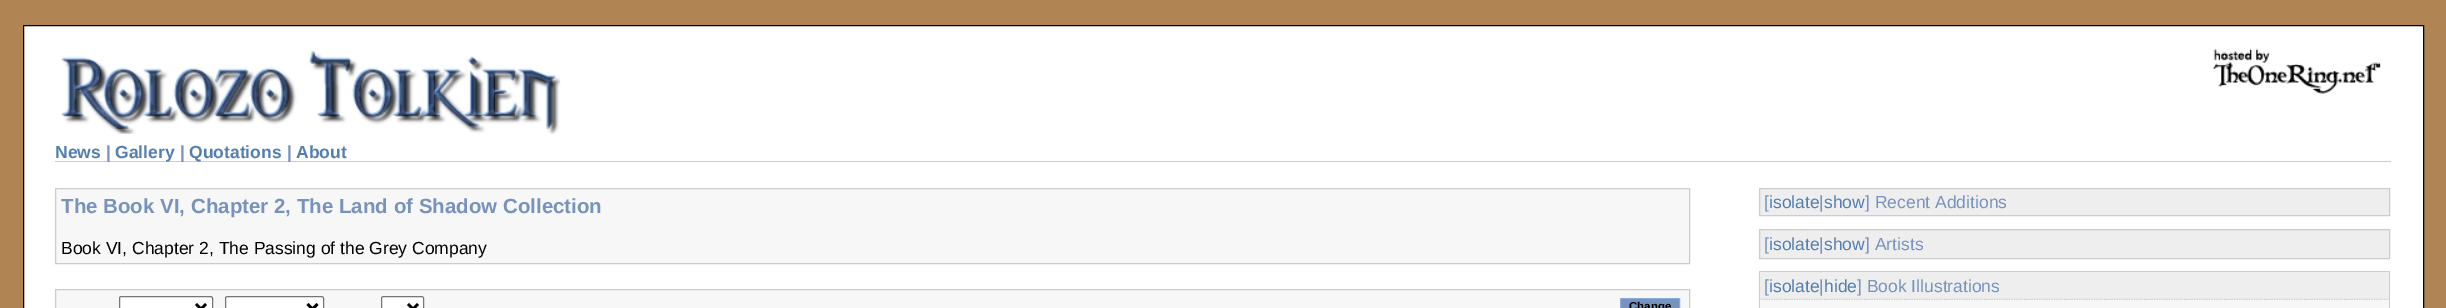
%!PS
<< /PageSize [2446 308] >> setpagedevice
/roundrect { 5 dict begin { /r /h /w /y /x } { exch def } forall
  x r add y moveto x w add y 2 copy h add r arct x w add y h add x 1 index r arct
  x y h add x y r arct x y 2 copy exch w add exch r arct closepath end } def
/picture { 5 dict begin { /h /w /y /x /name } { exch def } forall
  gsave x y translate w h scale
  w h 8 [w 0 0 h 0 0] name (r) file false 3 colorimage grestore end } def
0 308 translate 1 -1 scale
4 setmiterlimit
0.69 0.522 0.325 setrgbcolor
0 0 2446 308 rectfill
1 setgray
newpath 23.5 25.5 moveto 2423.5 25.5 lineto 2423.5 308.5 lineto 23.5 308.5 lineto closepath gsave fill grestore
0 setgray
stroke
(img1.rgb) 61 50 500 84 picture
(img2.rgb) 2212 48 169 46 picture
0.8 setgray
55 161 2336 1 rectfill
/LiberationSans-Bold [17.5 0 0 -17.5 0 0] selectfont
0.325 0.494 0.69 setrgbcolor
55 158 moveto (News) show
0.467 0.573 0.737 setrgbcolor
106 158 moveto (|) show
0.325 0.494 0.69 setrgbcolor
115 158 moveto (Gallery) show
0.467 0.573 0.737 setrgbcolor
180 158 moveto (|) show
0.325 0.494 0.69 setrgbcolor
189 158 moveto (Quotations) show
0.467 0.573 0.737 setrgbcolor
287 158 moveto (|) show
0.325 0.494 0.69 setrgbcolor
296 158 moveto (About) show
0.969 setgray
newpath 55.5 188.5 moveto 1689.5 188.5 lineto 1689.5 263.5 lineto 55.5 263.5 lineto closepath gsave fill grestore
0.8 setgray
stroke
/LiberationSans-Bold [20.5 0 0 -20.5 0 0] selectfont
0.467 0.573 0.737 setrgbcolor
61 213 moveto (The Book VI, Chapter 2, The Land of Shadow Collection) show
/LiberationSans-Regular [17.5 0 0 -17.5 0 0] selectfont
0 setgray
61 254 moveto (Book VI, Chapter 2, The Passing of the Grey Company) show
0.969 setgray
newpath 55.5 289.5 moveto 1689.5 289.5 lineto 1689.5 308.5 lineto 55.5 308.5 lineto closepath gsave fill grestore
0.8 setgray
stroke
1 setgray
119.5 296.5 93 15 2 roundrect gsave fill grestore
0.463 setgray
stroke
0 setgray
2.5 setlinewidth
newpath 196 304 moveto 201 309 lineto 206 304 lineto stroke
1 setgray
225.5 296.5 98 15 2 roundrect gsave fill grestore
0.463 setgray
1 setlinewidth
stroke
0 setgray
2.5 setlinewidth
newpath 307.5 304 moveto 312.5 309 lineto 317.5 304 lineto stroke
1 setgray
381.5 296.5 42 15 2 roundrect gsave fill grestore
0.463 setgray
1 setlinewidth
stroke
0 setgray
2.5 setlinewidth
newpath 408 304 moveto 413 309 lineto 418 304 lineto stroke
0.467 0.573 0.737 setrgbcolor
newpath 1620.5 298.5 moveto 1679.5 298.5 lineto 1679.5 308.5 lineto 1620.5 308.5 lineto closepath gsave fill grestore
0.533 0.667 0.867 setrgbcolor
1 setlinewidth
stroke
/LiberationSans-Bold [11.5 0 0 -11.5 0 0] selectfont
0 setgray
1629 310 moveto (Change) show
0.933 setgray
newpath 1759.5 188.5 moveto 2389.5 188.5 lineto 2389.5 215.5 lineto 1759.5 215.5 lineto closepath gsave fill grestore
0.8 setgray
stroke
/LiberationSans-Regular [17.5 0 0 -17.5 0 0] selectfont
0.467 0.573 0.737 setrgbcolor
1764 208 moveto ([) show
0.325 0.494 0.69 setrgbcolor
1769 208 moveto (isolate) show
0.467 0.573 0.737 setrgbcolor
1819 208 moveto (|) show
0.325 0.494 0.69 setrgbcolor
1824 208 moveto (show) show
0.467 0.573 0.737 setrgbcolor
1865 208 moveto (] Recent Additions) show
0.933 setgray
newpath 1759.5 229.5 moveto 2389.5 229.5 lineto 2389.5 258.5 lineto 1759.5 258.5 lineto closepath gsave fill grestore
0.8 setgray
stroke
0.467 0.573 0.737 setrgbcolor
1764 250 moveto ([) show
0.325 0.494 0.69 setrgbcolor
1769 250 moveto (isolate) show
0.467 0.573 0.737 setrgbcolor
1819 250 moveto (|) show
0.325 0.494 0.69 setrgbcolor
1824 250 moveto (show) show
0.467 0.573 0.737 setrgbcolor
1865 250 moveto (] Artists) show
0.933 setgray
1760 272 629 28 rectfill
0.8 setgray
1759 271 631 1 rectfill
2389 271 1 29 rectfill
1.2 setlinewidth
[1.25 1.25] 0 setdash
newpath 1759 299.5 moveto 2390 299.5 lineto stroke
1759 271 1 29 rectfill
0.467 0.573 0.737 setrgbcolor
1764 292 moveto ([) show
0.325 0.494 0.69 setrgbcolor
1769 292 moveto (isolate) show
0.467 0.573 0.737 setrgbcolor
1819 292 moveto (|) show
0.325 0.494 0.69 setrgbcolor
1824 292 moveto (hide) show
0.467 0.573 0.737 setrgbcolor
1857 292 moveto (] Book Illustrations) show
0.969 setgray
1759 300 631 8 rectfill
0.8 setgray
2389 300 1 8 rectfill
1759 300 1 8 rectfill
showpage
